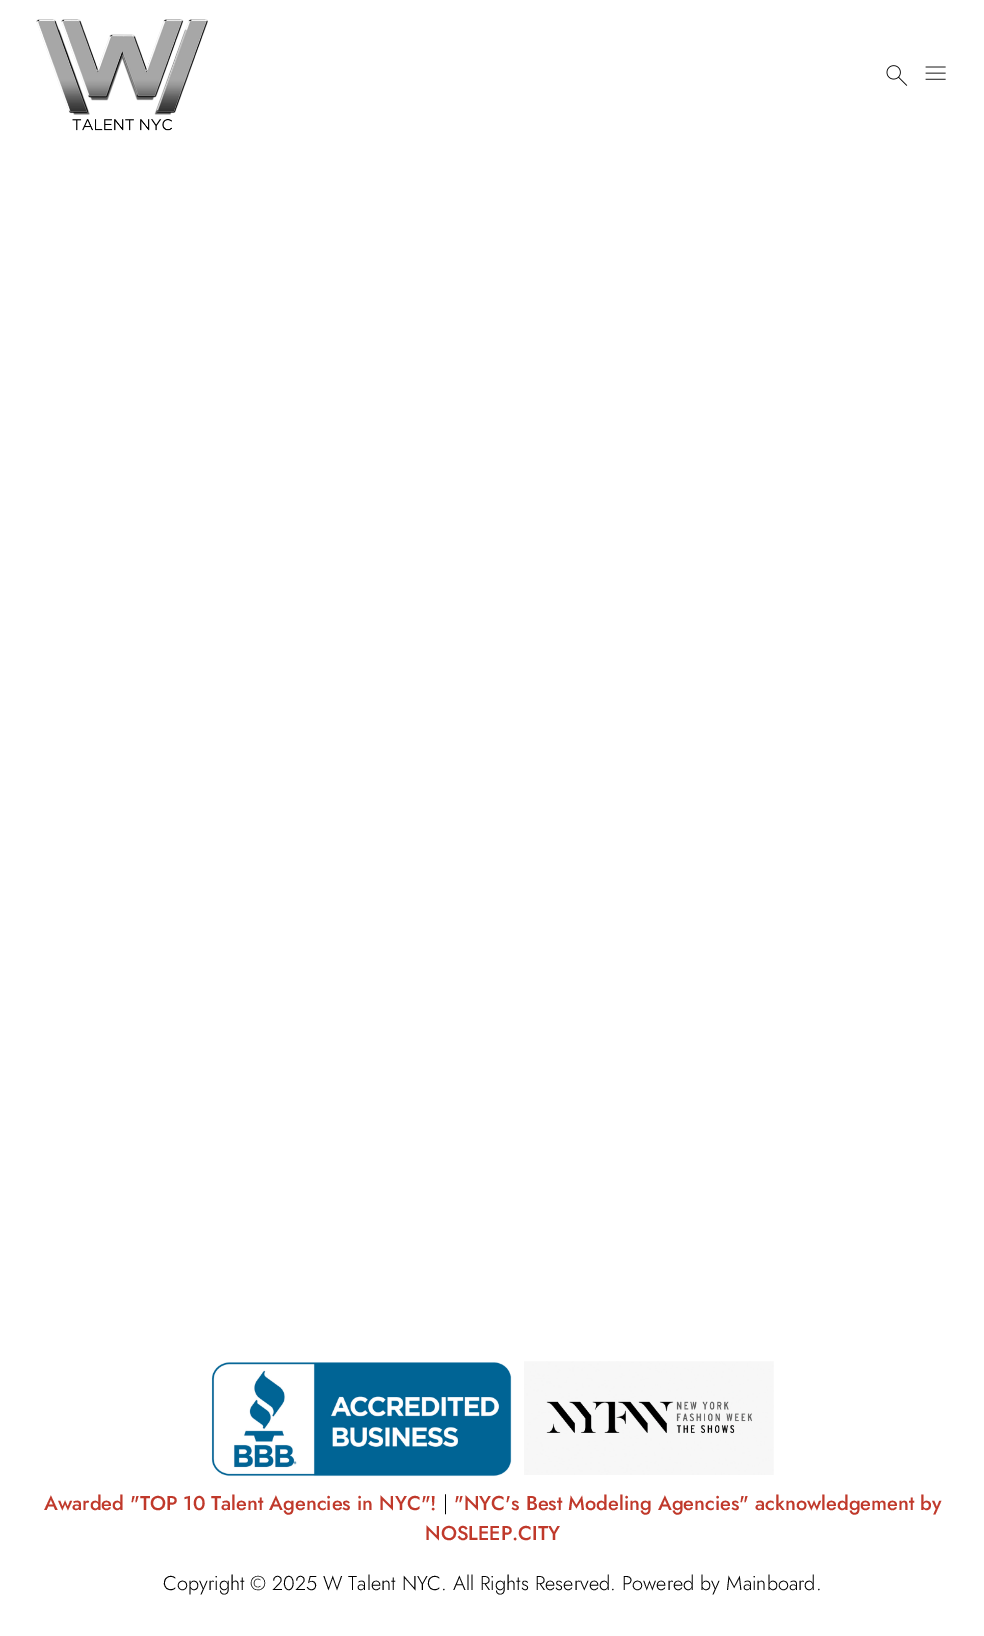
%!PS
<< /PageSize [984 1636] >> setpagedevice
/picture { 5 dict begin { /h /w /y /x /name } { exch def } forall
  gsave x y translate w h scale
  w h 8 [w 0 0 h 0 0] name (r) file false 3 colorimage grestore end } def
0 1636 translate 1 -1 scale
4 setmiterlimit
1 setgray
0 0 984 1636 rectfill
(img1.rgb) 36 19 172 112 picture
(img2.rgb) 886 65 22 21 picture
(img3.rgb) 925 66 21 14 picture
(img4.rgb) 211 1362 301 115 picture
(img5.rgb) 524 1361 250 114 picture
/Jost-Medium [20 0 0 -20 0 0] selectfont
0.753 0.224 0.169 setrgbcolor
44 1510 moveto (Awarded "TOP 10 Talent Agencies in NYC"!) show
/Jost-Light [20 0 0 -20 0 0] selectfont
0 setgray
443 1510 moveto (|) show
/Jost-Medium [20 0 0 -20 0 0] selectfont
0.753 0.224 0.169 setrgbcolor
454 1510 moveto ("NYC's Best Modeling Agencies" acknowledgement by) show
425 1540 moveto (NOSLEEP.CITY) show
/Jost-Light [20 0 0 -20 0 0] selectfont
0 setgray
163 1590 moveto (Copyright © 2025 W Talent NYC. All Rights Reserved. Powered by Mainboard.) show
showpage
